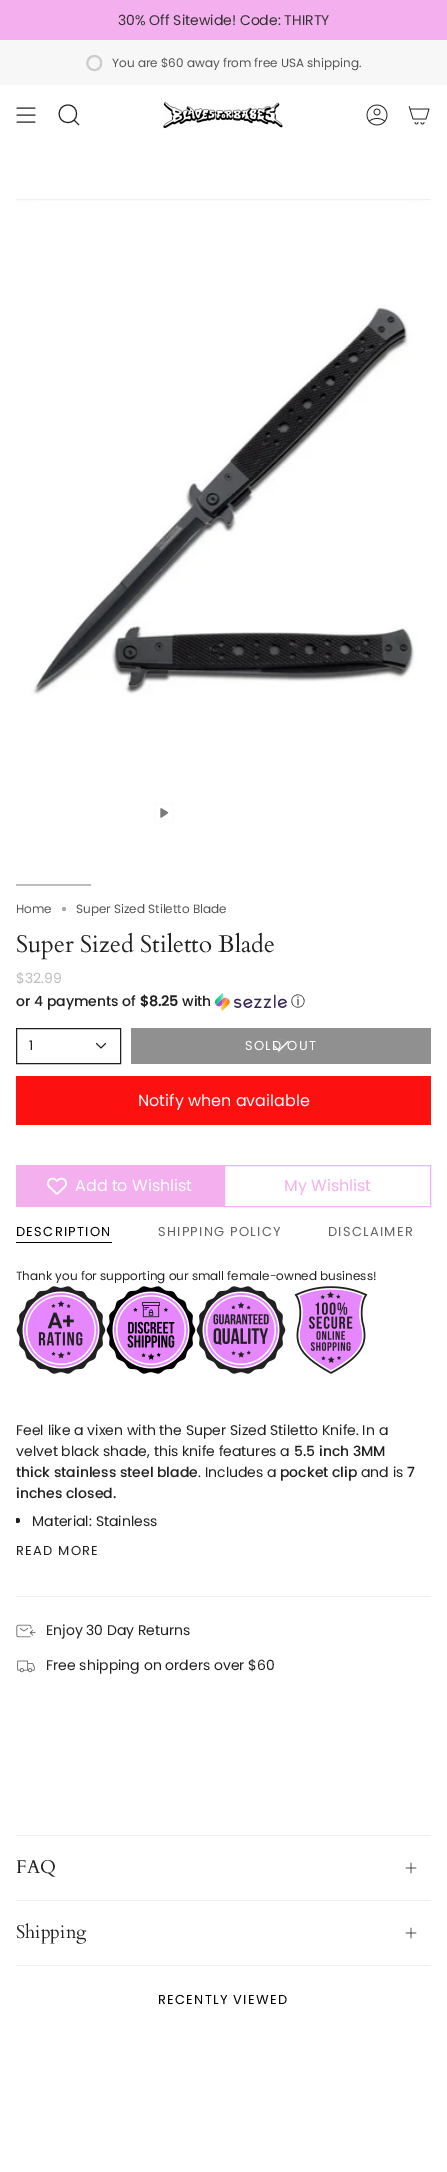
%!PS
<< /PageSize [447 2172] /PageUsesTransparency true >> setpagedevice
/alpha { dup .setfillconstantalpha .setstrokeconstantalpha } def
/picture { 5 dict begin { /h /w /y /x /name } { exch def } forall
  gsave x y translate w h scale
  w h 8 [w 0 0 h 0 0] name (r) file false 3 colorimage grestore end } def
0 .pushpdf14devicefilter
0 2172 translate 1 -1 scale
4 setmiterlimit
1 setgray
0 0 447 2172 rectfill
0.957 0.686 0.933 setrgbcolor
0 0 447 40 rectfill
/Poppins-Regular [14 0 0 -14 0 0] selectfont
0.2 setgray
118 25 moveto (30% Off Sitewide! Code: THIRTY) show
0.969 setgray
0 40 447 45 rectfill
0.8 setgray
2 setlinewidth
newpath 94.5 56 moveto 85 56 85 70 94.5 70 curveto 103.5 70 103.5 56 94.5 56 curveto closepath stroke
/Poppins-Regular [12 0 0 -12 0 0] selectfont
0.329 setgray
112 67 moveto (You are $60 away from free USA shipping.) show
0.129 setgray
1 setlinewidth
1 setlinecap
1 setlinejoin
newpath 17 108 moveto 35 108 lineto 17 115 moveto 35 115 lineto 17 122 moveto 35 122 lineto stroke
0 setlinecap
0 setlinejoin
newpath 68 105 moveto 79.5 105 79.5 123 67.5 122.5 curveto 56 122 56.5 105 68 105 curveto closepath 74 120 moveto 79 125 lineto stroke
(img1.rgb) 163 101 120 28 picture
(img2.rgb) 366 104 22 22 picture
(img3.rgb) 408 106 22 19 picture
(img4.rgb) 16 199 415 496 picture
(img5.rgb) 154 803 20 20 picture
0.741 setgray
16 884 75 2 rectfill
0.329 setgray
16 913 moveto (Home) show
0.651 setgray
newpath 64 909 2 0 360 arc closepath fill
0.329 setgray
76 913 moveto (Super Sized Stiletto Blade) show
/Cardo-Regular [24.1 0 0 -24.1 0 0] selectfont
0.129 setgray
16 952 moveto (Super Sized Stiletto Blade) show
/Poppins-Regular [14 0 0 -14 0 0] selectfont
0.737 setgray
16 983 moveto ($32.99) show
/Poppins-Medium [14 0 0 -14 0 0] selectfont
0.129 setgray
16 1006 moveto (or 4 payments of) show
/Poppins-Bold [14 0 0 -14 0 0] selectfont
140 1006 moveto ($8.25) show
/Poppins-Medium [14 0 0 -14 0 0] selectfont
182 1006 moveto (with) show
(img6.rgb) 215 993 72 18 picture
/WenQuanYiZenHei-Medium [14 0 0 -14 0 0] selectfont
291 1006 moveto (ⓘ) show
16.5 1028.5 104 35 rectstroke
/Poppins-Regular [13 0 0 -13 0 0] selectfont
29 1050 moveto (1) show
0.8 setlinewidth
1 setlinecap
1 setlinejoin
newpath 96.5 1043.5 moveto 101 1048 lineto 105.5 1043.5 lineto stroke
0.565 setgray
131 1028 300 36 rectfill
1 setgray
newpath 278 1050.5 moveto 288 1041 lineto 289 1041.5 lineto 279 1051.5 lineto closepath fill
newpath 273 1045.5 moveto 274 1045 lineto 279.5 1050.5 lineto 279 1051.5 lineto closepath fill
0.05 alpha
1 setlinewidth
0 setlinecap
0 setlinejoin
newpath 281 1046 7 0 360 arc closepath stroke
1 alpha
245 1050 moveto 1.25 0 (SOLD OUT) ashow
0.992 0.063 0.063 setrgbcolor
16 1076 415 49 rectfill
/Poppins-Regular [16 0 0 -16 0 0] selectfont
0.973 setgray
138 1106 moveto (Notify when available) show
0.957 0.686 0.933 setrgbcolor
16 1165 208 42 rectfill
(img7.rgb) 47 1177 20 18 picture
1 setgray
75 1191 moveto (Add to Wishlist) show
0.957 0.686 0.933 setrgbcolor
224.5 1165.5 206 41 rectstroke
284 1191 moveto (My Wishlist) show
/Poppins-Regular [13 0 0 -13 0 0] selectfont
0 setgray
16 1236 moveto 1.25 0 (DESCRIPTION) ashow
16 1242 96 1 rectfill
0.392 setgray
158 1236 moveto 1.25 0 (SHIPPING POLICY) ashow
328 1236 moveto 1.25 0 (DISCLAIMER) ashow
/Poppins-Regular [12 0 0 -12 0 0] selectfont
0.129 setgray
16 1280 moveto (Thank you for supporting our small female-owned business!) show
(img8.rgb) 16 1286 90 88 picture
(img9.rgb) 106 1286 90 88 picture
(img10.rgb) 196 1286 90 88 picture
(img11.rgb) 294 1286 74 88 picture
/Poppins-Regular [14 0 0 -14 0 0] selectfont
16 1435 moveto (Feel like a vixen with the Super Sized Stiletto Knife. In a) show
16 1456 moveto (velvet black shade, this knife features a) show
/Poppins-Medium [14 0 0 -14 0 0] selectfont
294 1456 moveto (5.5 inch 3MM) show
16 1477 moveto (thick stainless steel blade) show
/Poppins-Regular [14 0 0 -14 0 0] selectfont
198 1477 moveto (. Includes a) show
/Poppins-Medium [14 0 0 -14 0 0] selectfont
280 1477 moveto (pocket clip) show
/Poppins-Regular [14 0 0 -14 0 0] selectfont
361 1477 moveto (and is) show
/Poppins-Medium [14 0 0 -14 0 0] selectfont
407 1477 moveto (7) show
16 1498 moveto (inches closed.) show
gsave
16 1157 415 419 rectclip
newpath 17.5 1520.5 2.5 0 360 arc closepath fill
grestore
/Poppins-Regular [14 0 0 -14 0 0] selectfont
32 1526 moveto (Material: Stainless) show
/Poppins-Regular [13 0 0 -13 0 0] selectfont
16 1555 moveto 1.25 0 (READ MORE) ashow
0.941 setgray
16 1596 415 1 rectfill
(img12.rgb) 16 1624 20 14 picture
/Poppins-Regular [14 0 0 -14 0 0] selectfont
0.129 setgray
46 1635 moveto (Enjoy 30 Day Returns) show
(img13.rgb) 17 1660 18 13 picture
46 1670 moveto (Free shipping on orders over $60) show
0.941 setgray
16 1835 415 1 rectfill
/Cardo-Regular [18.5 0 0 -18.5 0 0] selectfont
0.129 setgray
16 1873 moveto (FAQ) show
(img14.rgb) 405 1862 12 12 picture
0.941 setgray
16 1900 415 1 rectfill
16 1965 415 1 rectfill
0.129 setgray
16 1938 moveto (Shipping) show
(img14.rgb) 405 1927 12 12 picture
/Poppins-Regular [13 0 0 -13 0 0] selectfont
0 setgray
158 2004 moveto 1.25 0 (RECENTLY VIEWED) ashow
.poppdf14devicefilter showpage
